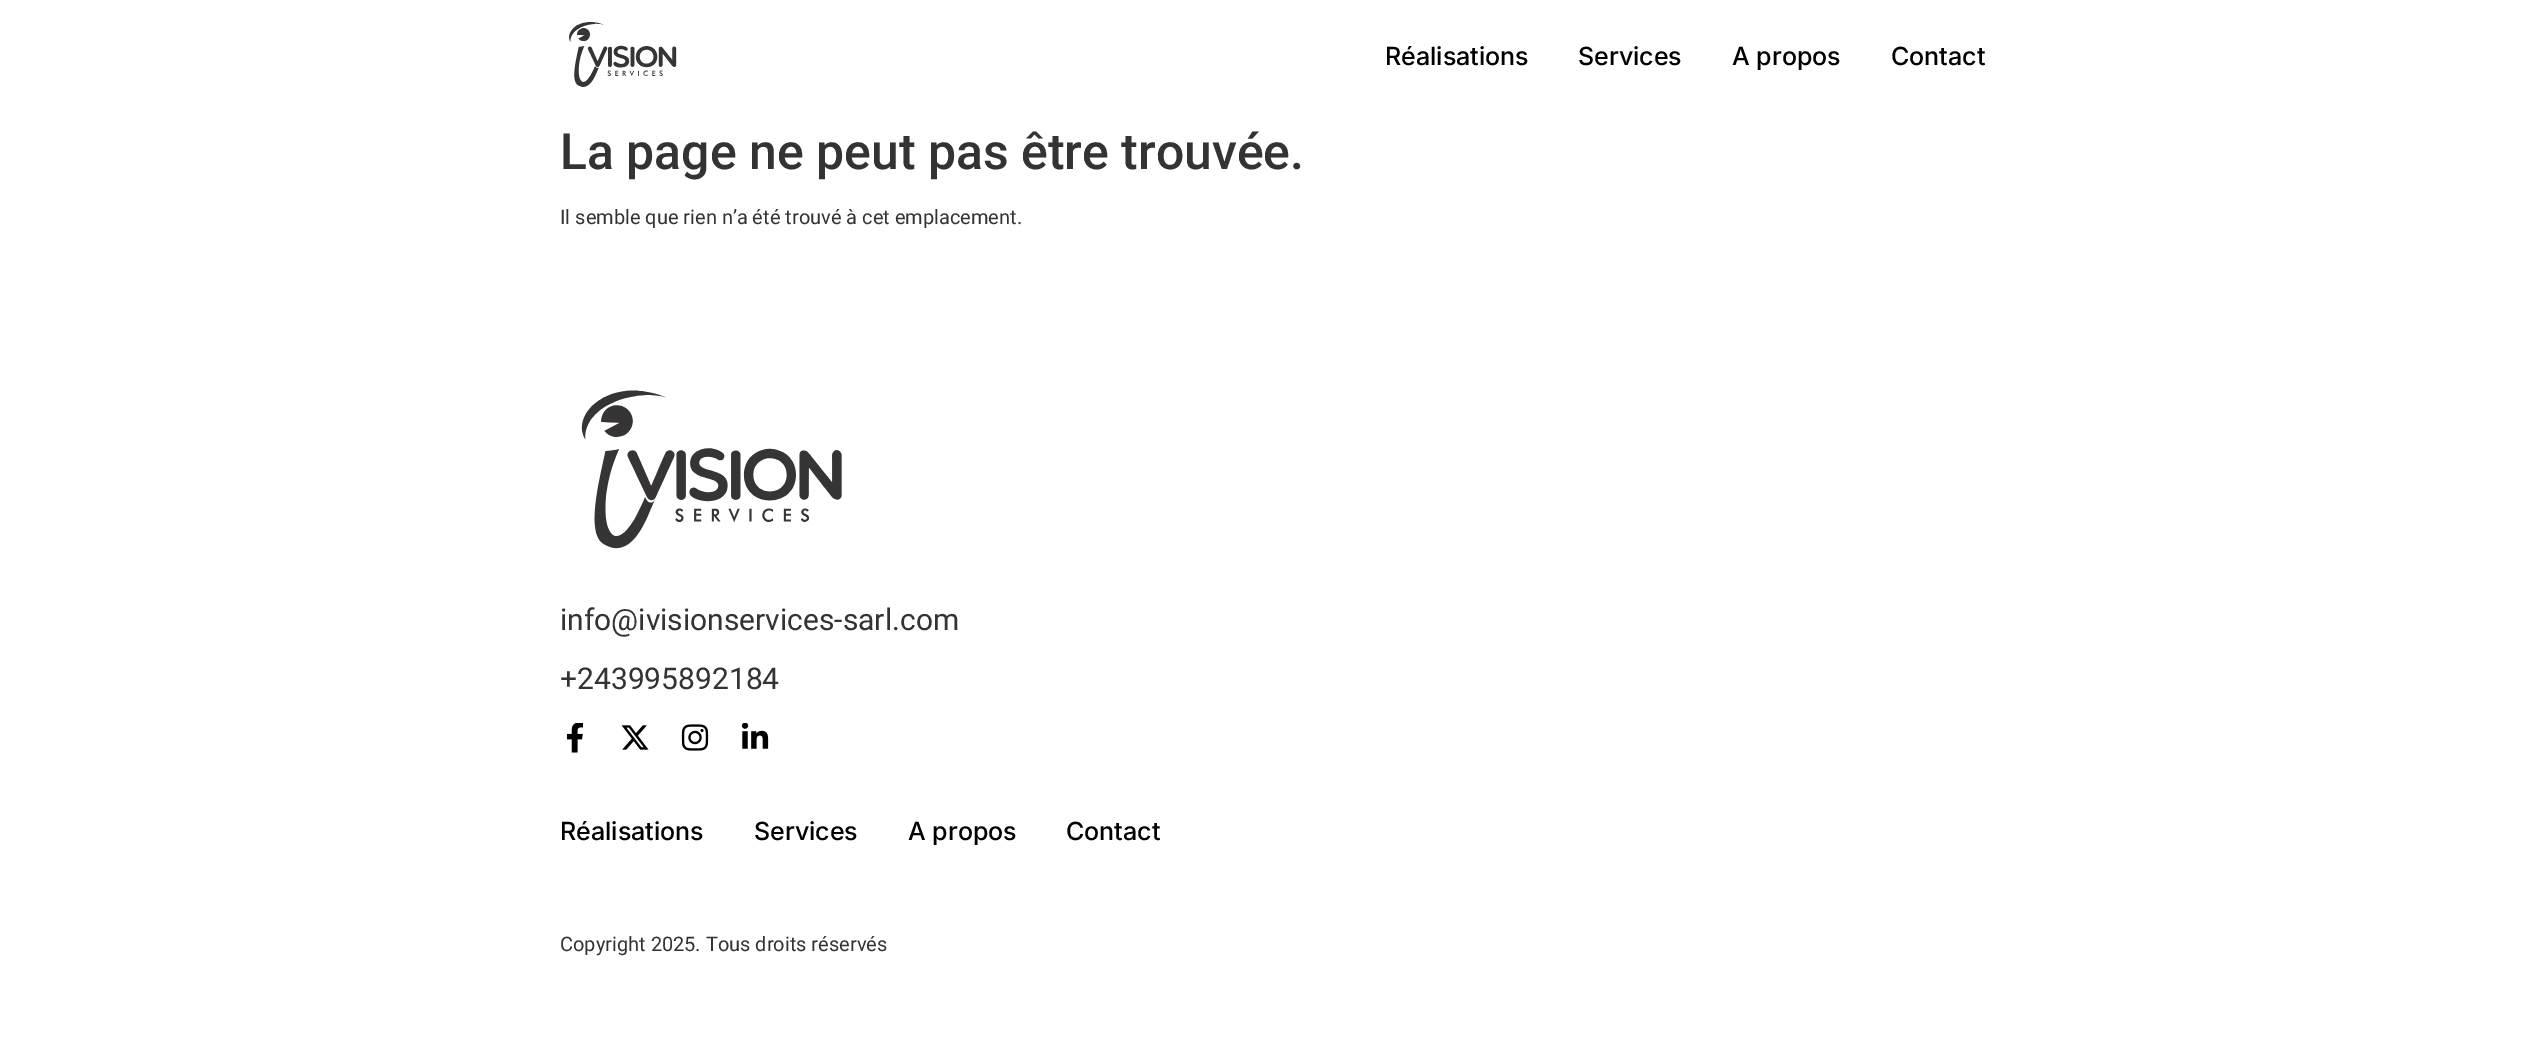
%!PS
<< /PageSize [2544 1050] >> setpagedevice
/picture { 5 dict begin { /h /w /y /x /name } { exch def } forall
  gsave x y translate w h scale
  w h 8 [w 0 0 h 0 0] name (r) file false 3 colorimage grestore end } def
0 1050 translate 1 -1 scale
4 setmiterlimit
1 setgray
0 0 2544 1050 rectfill
(img1.rgb) 569 22 108 65 picture
/Inter-Medium [25 0 0 -25 0 0] selectfont
0 setgray
1385 65 moveto (Réalisations) show
1578 65 moveto (Services) show
1732 65 moveto (A propos) show
1891 65 moveto (Contact) show
/Roboto-Medium [50 0 0 -50 0 0] selectfont
0.2 setgray
560 169 moveto (La page ne peut pas être trouvée.) show
/Roboto-Regular [20 0 0 -20 0 0] selectfont
560 224 moveto (Il semble que rien n’a été trouvé à cet emplacement.) show
(img2.rgb) 581 390 261 159 picture
/Roboto-Regular [30 0 0 -30 0 0] selectfont
560 630 moveto (info@ivisionservices-sarl.com) show
560 689 moveto (+243995892184) show
(img3.rgb) 566 723 18 30 picture
(img4.rgb) 621 725 28 25 picture
(img5.rgb) 681 724 28 27 picture
(img6.rgb) 741 723 28 26 picture
/Inter-Medium [25 0 0 -25 0 0] selectfont
0 setgray
560 840 moveto (Réalisations) show
754 840 moveto (Services) show
908 840 moveto (A propos) show
1066 840 moveto (Contact) show
/Roboto-Regular [20 0 0 -20 0 0] selectfont
0.2 setgray
560 951 moveto (Copyright 2025. Tous droits réservés) show
showpage
